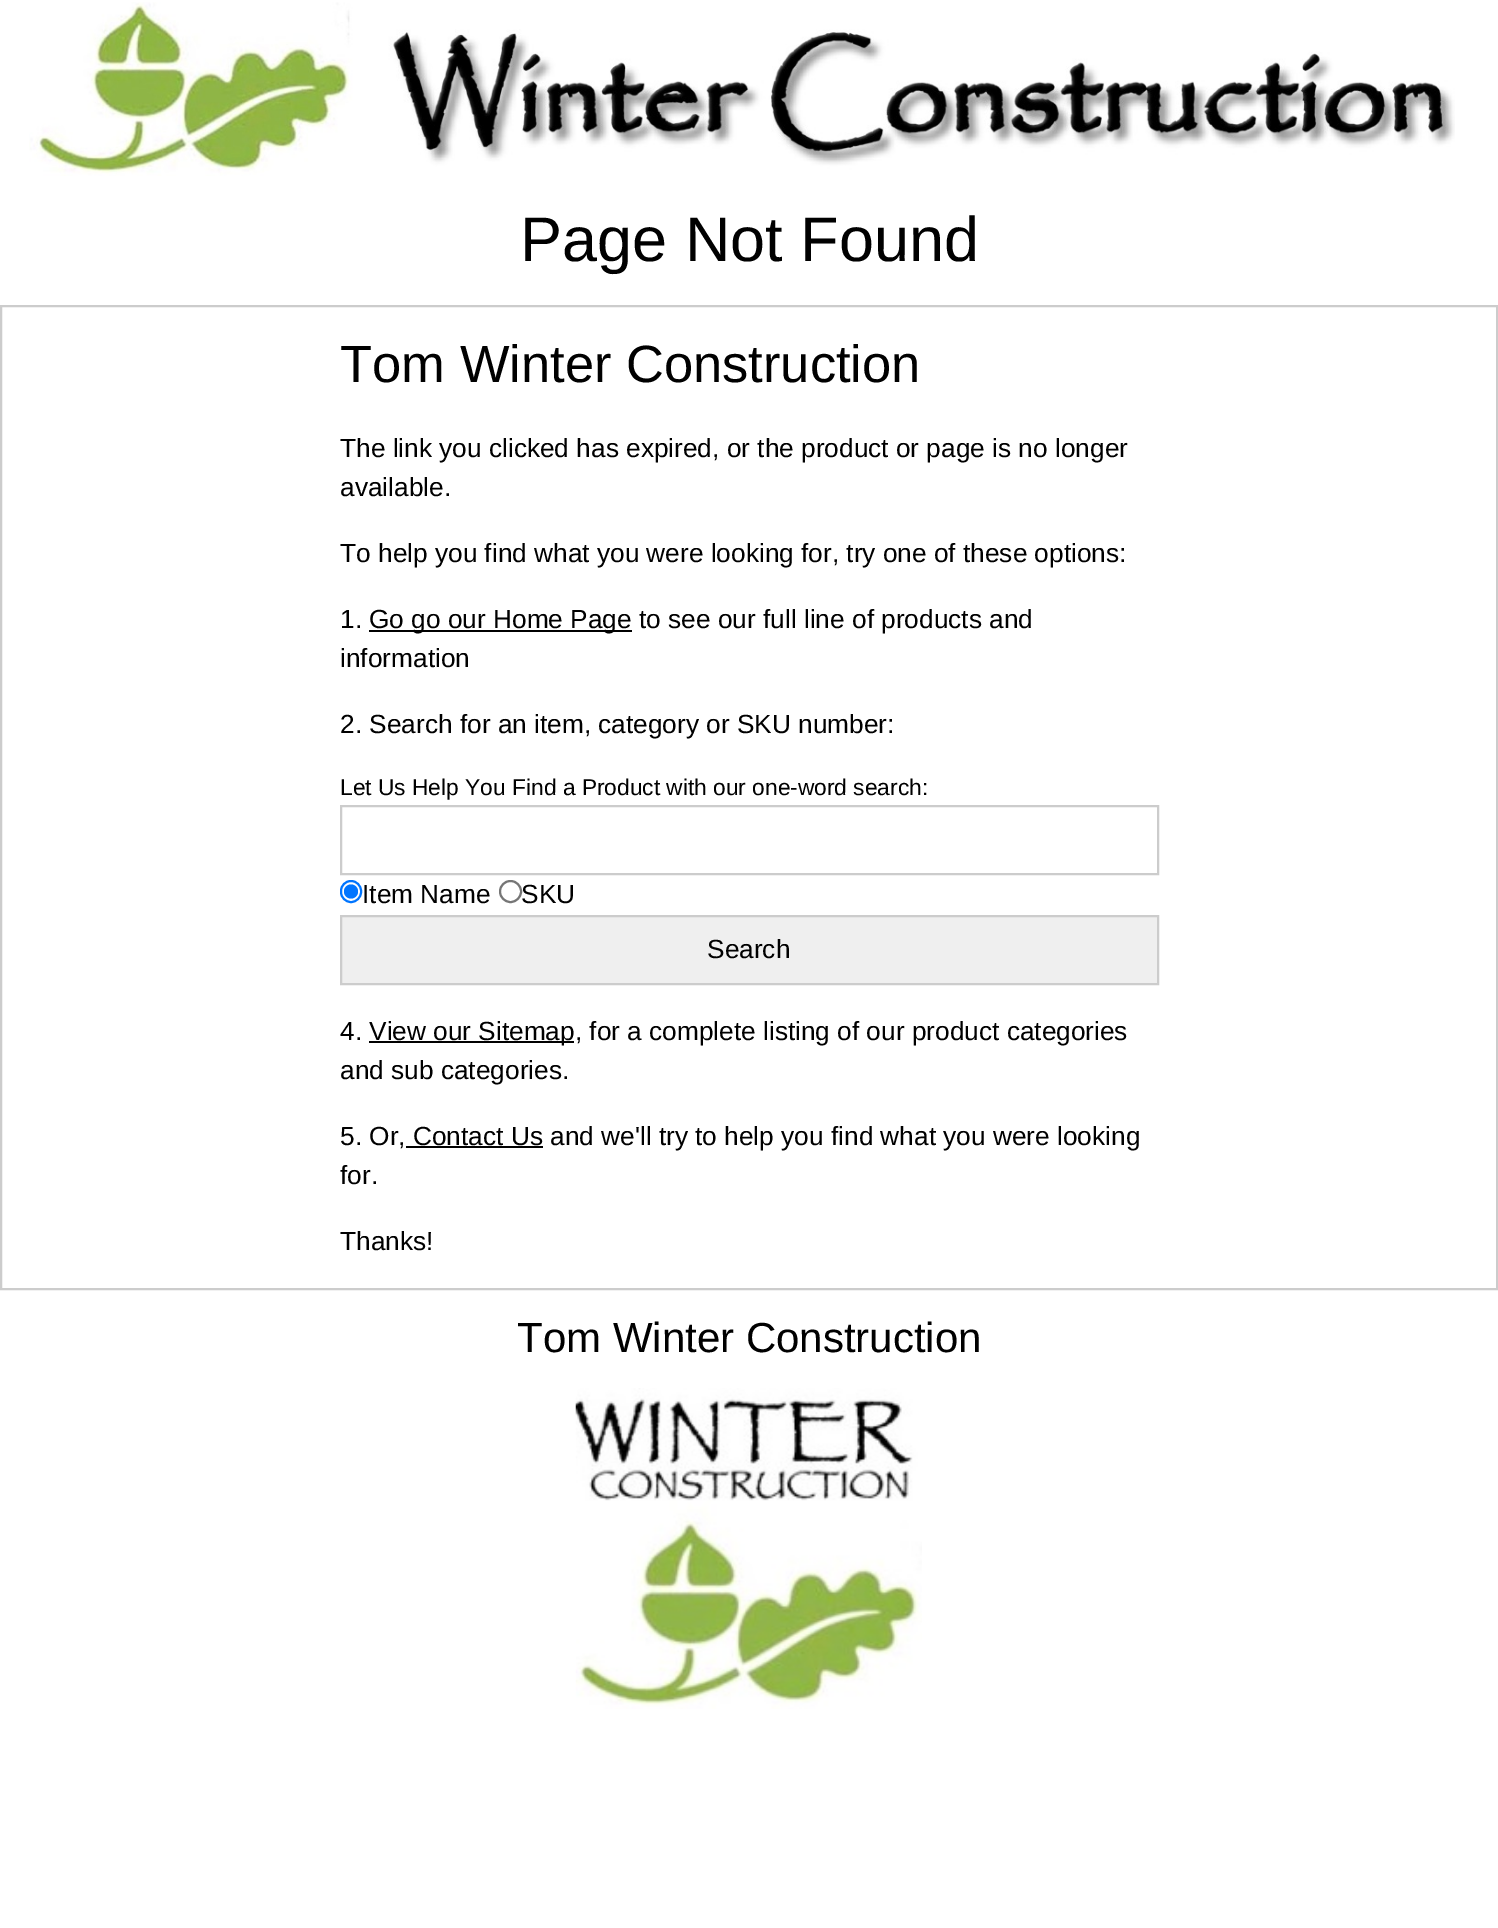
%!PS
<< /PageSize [1498 1928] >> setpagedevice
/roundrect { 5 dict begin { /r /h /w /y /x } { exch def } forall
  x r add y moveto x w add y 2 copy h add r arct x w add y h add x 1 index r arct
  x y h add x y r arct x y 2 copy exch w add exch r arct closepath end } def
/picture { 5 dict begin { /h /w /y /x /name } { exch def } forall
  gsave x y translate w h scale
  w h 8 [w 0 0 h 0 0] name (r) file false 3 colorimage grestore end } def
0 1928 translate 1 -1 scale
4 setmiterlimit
1 setgray
0 0 1498 1928 rectfill
(img1.rgb) 29 2 1426 174 picture
/LiberationSans-Regular [63 0 0 -63 0 0] selectfont
0 setgray
520 261 moveto (Page Not Found) show
0.8 setgray
2 setlinewidth
1 306 1496 983 rectstroke
/LiberationSans-Regular [52.5 0 0 -52.5 0 0] selectfont
0 setgray
340 382 moveto (Tom Winter Construction) show
/LiberationSans-Regular [26.25 0 0 -26.25 0 0] selectfont
340 457 moveto (The link you clicked has expired, or the product or page is no longer) show
340 496 moveto (available.) show
340 562 moveto (To help you find what you were looking for, try one of these options:) show
340 628 moveto (1.) show
369 630 263 2 rectfill
369 628 moveto (Go go our Home Page to see our full line of products and) show
340 667 moveto (information) show
340 733 moveto (2. Search for an item, category or SKU number:) show
/LiberationSans-Regular [22.75 0 0 -22.75 0 0] selectfont
340 795 moveto (Let Us Help You Find a Product with our one-word search:) show
0.8 setgray
341 806 817 68 rectstroke
0 0.459 1 setrgbcolor
341 881 20 21 10 roundrect stroke
newpath 351 891.5 7 0 360 arc closepath fill
/LiberationSans-Regular [26.25 0 0 -26.25 0 0] selectfont
0 setgray
362 903 moveto (Item Name) show
0.463 setgray
newpath 510.5 891.5 10.5 0 360 arc closepath stroke
0 setgray
521 903 moveto (SKU) show
0.937 setgray
newpath 341 916 moveto 1158 916 lineto 1158 984 lineto 341 984 lineto closepath gsave fill grestore
0.8 setgray
stroke
0 setgray
707 958 moveto (Search) show
340 1040 moveto (4.) show
369 1041 205 2 rectfill
369 1040 moveto (View our Sitemap, for a complete listing of our product categories) show
340 1079 moveto (and sub categories.) show
340 1145 moveto (5. Or, Contact Us and we'll try to help you find what you were looking) show
406 1146 137 2 rectfill
340 1184 moveto (for.) show
340 1250 moveto (Thanks!) show
/LiberationSans-Regular [42 0 0 -42 0 0] selectfont
517 1352 moveto (Tom Winter Construction) show
(img2.rgb) 575 1388 347 321 picture
showpage
